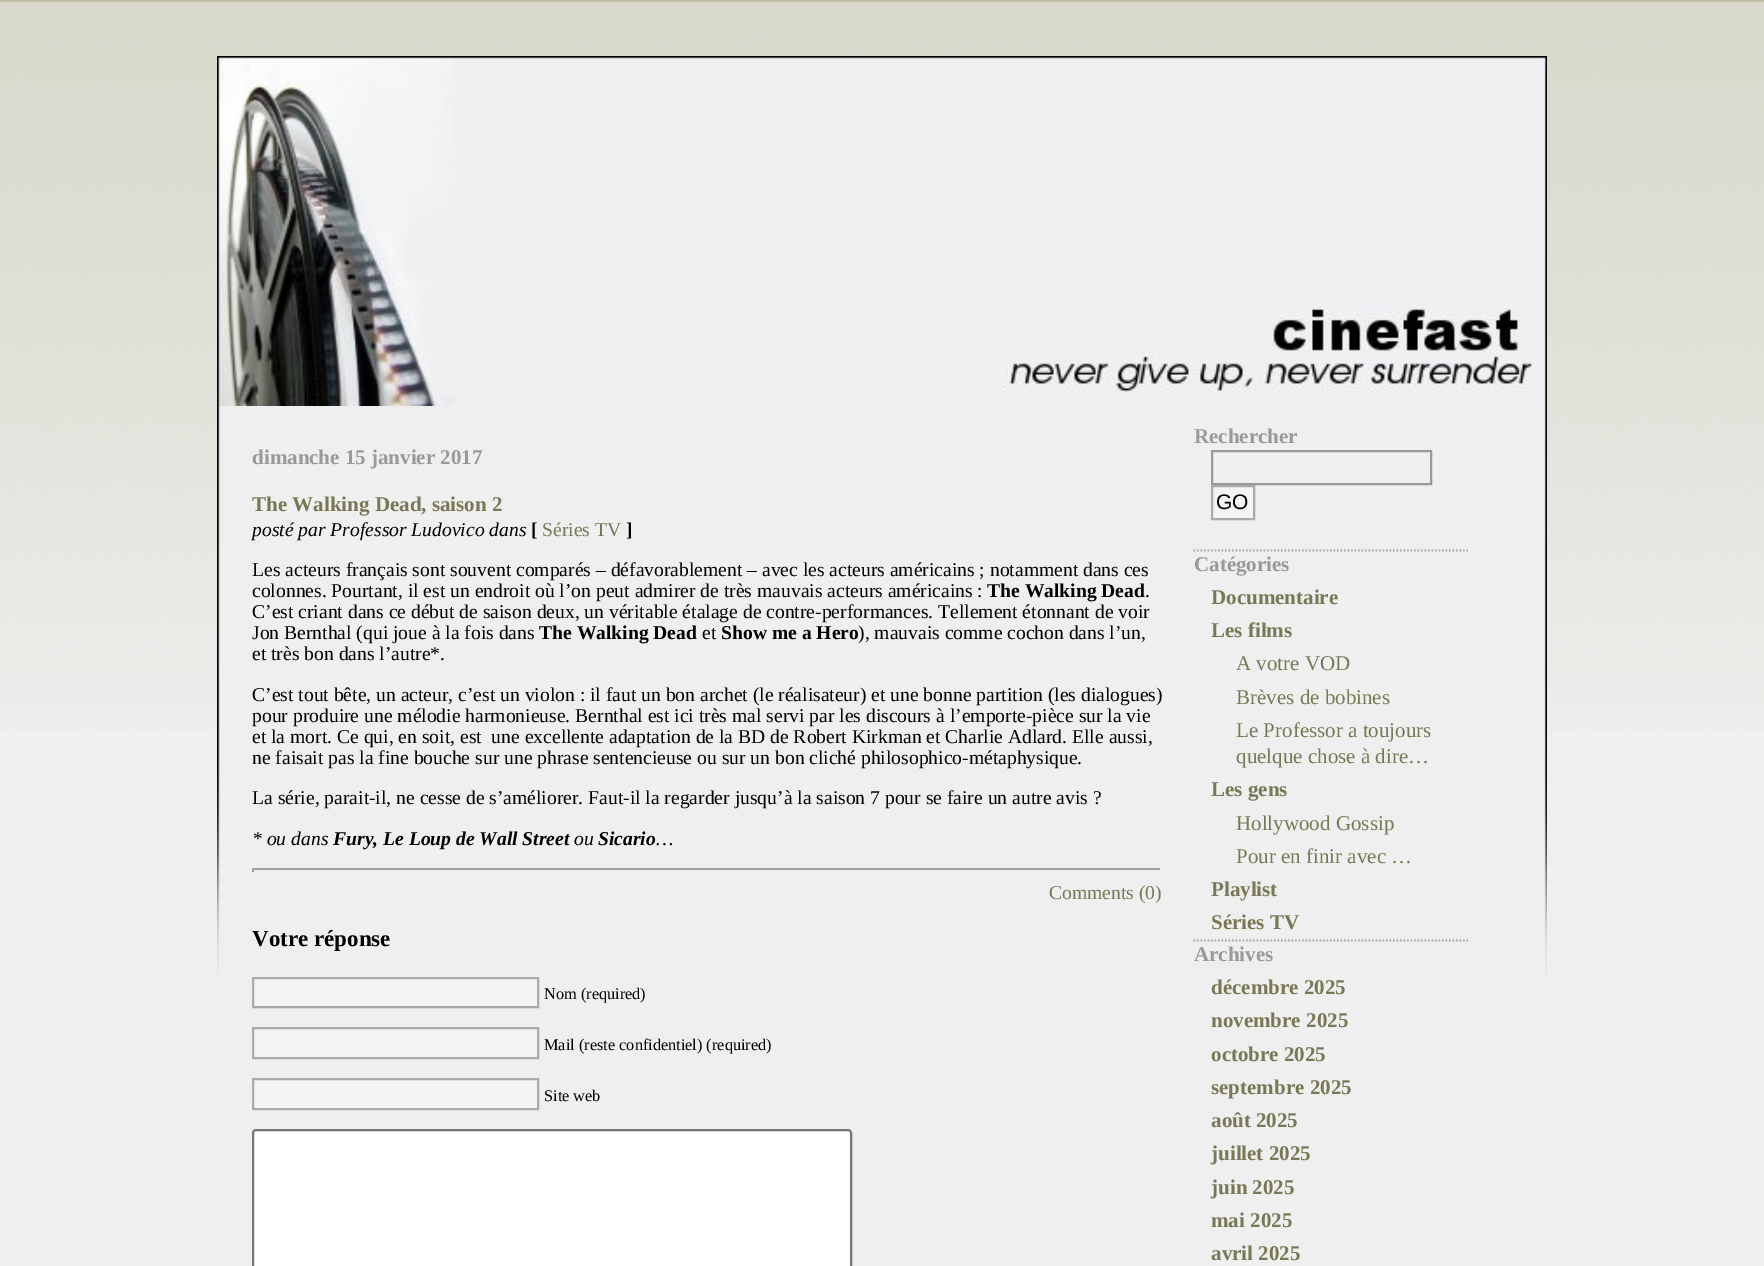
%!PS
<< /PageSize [1764 1266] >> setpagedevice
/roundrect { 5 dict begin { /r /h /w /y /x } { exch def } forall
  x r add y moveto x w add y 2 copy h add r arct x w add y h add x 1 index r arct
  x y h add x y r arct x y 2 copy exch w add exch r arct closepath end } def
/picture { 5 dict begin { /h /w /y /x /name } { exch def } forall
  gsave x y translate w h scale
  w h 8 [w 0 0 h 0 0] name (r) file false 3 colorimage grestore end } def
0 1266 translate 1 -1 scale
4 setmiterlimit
0.937 setgray
0 0 1764 1266 rectfill
(img1.rgb) 0 0 1764 730 picture
(img2.rgb) 217 56 1330 350 picture
(img3.rgb) 217 406 1330 575 picture
/LiberationSerif-Bold [21 0 0 -21 0 0] selectfont
0.6 setgray
252 464 moveto (dimanche 15 janvier 2017) show
0.471 0.471 0.337 setrgbcolor
252 511 moveto (The Walking Dead, saison 2) show
/LiberationSerif-Italic [19.6 0 0 -19.6 0 0] selectfont
0 setgray
252 536 moveto (posté par Professor Ludovico dans) show
/LiberationSerif-Bold [19.6 0 0 -19.6 0 0] selectfont
531 536 moveto ([) show
/LiberationSerif-Regular [19.6 0 0 -19.6 0 0] selectfont
0.471 0.471 0.337 setrgbcolor
542 536 moveto (Séries TV) show
/LiberationSerif-Bold [19.6 0 0 -19.6 0 0] selectfont
0 setgray
626 536 moveto (]) show
/LiberationSerif-Regular [19.6 0 0 -19.6 0 0] selectfont
252 576 moveto (Les acteurs français sont souvent comparés – défavorablement – avec les acteurs américains ; notamment dans ces) show
252 597 moveto (colonnes. Pourtant, il est un endroit où l’on peut admirer de très mauvais acteurs américains :) show
/LiberationSerif-Bold [19.6 0 0 -19.6 0 0] selectfont
987 597 moveto (The Walking Dead) show
/LiberationSerif-Regular [19.6 0 0 -19.6 0 0] selectfont
1145 597 moveto (.) show
252 618 moveto (C’est criant dans ce début de saison deux, un véritable étalage de contre-performances. Tellement étonnant de voir) show
252 639 moveto (Jon Bernthal \(qui joue à la fois dans) show
/LiberationSerif-Bold [19.6 0 0 -19.6 0 0] selectfont
539 639 moveto (The Walking Dead) show
/LiberationSerif-Regular [19.6 0 0 -19.6 0 0] selectfont
702 639 moveto (et) show
/LiberationSerif-Bold [19.6 0 0 -19.6 0 0] selectfont
721 639 moveto (Show me a Hero) show
/LiberationSerif-Regular [19.6 0 0 -19.6 0 0] selectfont
858 639 moveto (\), mauvais comme cochon dans l’un,) show
252 660 moveto (et très bon dans l’autre*.) show
252 701 moveto (C’est tout bête, un acteur, c’est un violon : il faut un bon archet \(le réalisateur\) et une bonne partition \(les dialogues\)) show
252 722 moveto (pour produire une mélodie harmonieuse. Bernthal est ici très mal servi par les discours à l’emporte-pièce sur la vie) show
252 743 moveto (et la mort. Ce qui, en soit, est  une excellente adaptation de la BD de Robert Kirkman et Charlie Adlard. Elle aussi,) show
252 764 moveto (ne faisait pas la fine bouche sur une phrase sentencieuse ou sur un bon cliché philosophico-métaphysique.) show
252 804 moveto (La série, parait-il, ne cesse de s’améliorer. Faut-il la regarder jusqu’à la saison 7 pour se faire un autre avis ?) show
/LiberationSerif-Italic [19.6 0 0 -19.6 0 0] selectfont
252 845 moveto (* ou dans) show
/LiberationSerif-BoldItalic [19.6 0 0 -19.6 0 0] selectfont
333 845 moveto (Fury, Le Loup de Wall Street) show
/LiberationSerif-Italic [19.6 0 0 -19.6 0 0] selectfont
574 845 moveto (ou) show
/LiberationSerif-BoldItalic [19.6 0 0 -19.6 0 0] selectfont
598 845 moveto (Sicario) show
/LiberationSerif-Italic [19.6 0 0 -19.6 0 0] selectfont
656 845 moveto (…) show
0.624 setgray
252 868 910 2 rectfill
0.933 setgray
1160 868 2 4 rectfill
0.624 setgray
252 868 2 4 rectfill
/LiberationSerif-Regular [19.6 0 0 -19.6 0 0] selectfont
0.471 0.471 0.337 setrgbcolor
1049 899 moveto (Comments \(0\)) show
/LiberationSerif-Bold [23 0 0 -23 0 0] selectfont
0 setgray
252 946 moveto (Votre réponse) show
0.957 0.957 0.953 setrgbcolor
newpath 253 978 moveto 538 978 lineto 538 1007 lineto 253 1007 lineto closepath gsave fill grestore
0.667 setgray
2 setlinewidth
stroke
/LiberationSerif-Regular [16.3 0 0 -16.3 0 0] selectfont
0 setgray
544 999 moveto (Nom \(required\)) show
0.957 0.957 0.953 setrgbcolor
newpath 253 1028 moveto 538 1028 lineto 538 1058 lineto 253 1058 lineto closepath gsave fill grestore
0.667 setgray
stroke
0 setgray
544 1050 moveto (Mail \(reste confidentiel\) \(required\)) show
0.957 0.957 0.953 setrgbcolor
newpath 253 1079 moveto 538 1079 lineto 538 1109 lineto 253 1109 lineto closepath gsave fill grestore
0.667 setgray
stroke
0 setgray
544 1101 moveto (Site web) show
1 setgray
253 1130 598 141 3 roundrect gsave fill grestore
0.463 setgray
stroke
0.667 setgray
1.8 setlinewidth
[1.75 1.75] 0 setdash
newpath 1193.5 550.5 moveto 1468 550.5 lineto stroke
/LiberationSerif-Bold [21 0 0 -21 0 0] selectfont
0.6 setgray
1194 443 moveto (Rechercher) show
2 setlinewidth
[] 0 setdash
1212 451 219 33 rectstroke
0.957 0.957 0.953 setrgbcolor
newpath 1212 486 moveto 1254 486 lineto 1254 519 lineto 1212 519 lineto closepath gsave fill grestore
0.667 setgray
stroke
/LiberationSans-Regular [21 0 0 -21 0 0] selectfont
0 setgray
1216 509 moveto (GO) show
0.667 setgray
1.8 setlinewidth
[1.75 1.75] 0 setdash
newpath 1193.5 940.5 moveto 1468 940.5 lineto stroke
/LiberationSerif-Bold [21 0 0 -21 0 0] selectfont
0.6 setgray
1194 571 moveto (Catégories) show
0.471 0.471 0.337 setrgbcolor
1211 604 moveto (Documentaire) show
1211 637 moveto (Les films) show
/LiberationSerif-Regular [21 0 0 -21 0 0] selectfont
1236 670 moveto (A votre VOD) show
1236 704 moveto (Brèves de bobines) show
1236 737 moveto (Le Professor a toujours) show
1236 763 moveto (quelque chose à dire…) show
/LiberationSerif-Bold [21 0 0 -21 0 0] selectfont
1211 796 moveto (Les gens) show
/LiberationSerif-Regular [21 0 0 -21 0 0] selectfont
1236 830 moveto (Hollywood Gossip) show
1236 863 moveto (Pour en finir avec …) show
/LiberationSerif-Bold [21 0 0 -21 0 0] selectfont
1211 896 moveto (Playlist) show
1211 929 moveto (Séries TV) show
0.6 setgray
1194 961 moveto (Archives) show
0.471 0.471 0.337 setrgbcolor
1211 994 moveto (décembre 2025) show
1211 1027 moveto (novembre 2025) show
1211 1061 moveto (octobre 2025) show
1211 1094 moveto (septembre 2025) show
1211 1127 moveto (août 2025) show
1211 1160 moveto (juillet 2025) show
1211 1194 moveto (juin 2025) show
1211 1227 moveto (mai 2025) show
1211 1260 moveto (avril 2025) show
showpage
